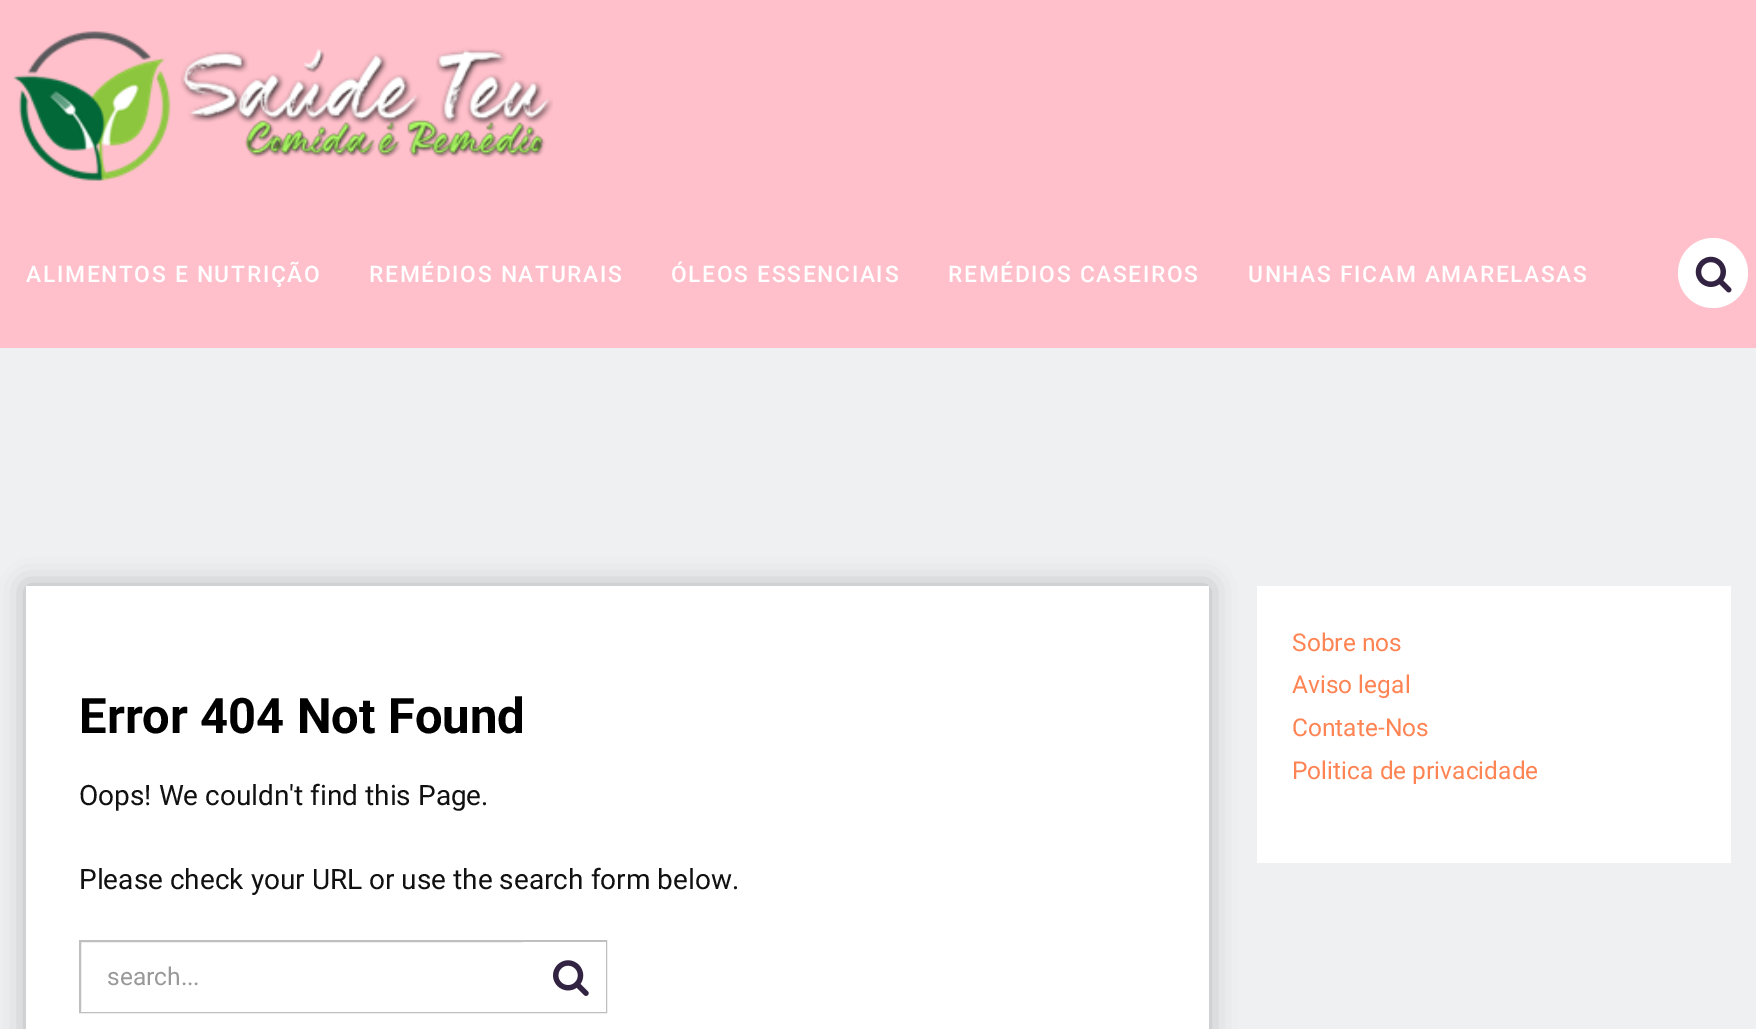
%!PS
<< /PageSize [1756 1029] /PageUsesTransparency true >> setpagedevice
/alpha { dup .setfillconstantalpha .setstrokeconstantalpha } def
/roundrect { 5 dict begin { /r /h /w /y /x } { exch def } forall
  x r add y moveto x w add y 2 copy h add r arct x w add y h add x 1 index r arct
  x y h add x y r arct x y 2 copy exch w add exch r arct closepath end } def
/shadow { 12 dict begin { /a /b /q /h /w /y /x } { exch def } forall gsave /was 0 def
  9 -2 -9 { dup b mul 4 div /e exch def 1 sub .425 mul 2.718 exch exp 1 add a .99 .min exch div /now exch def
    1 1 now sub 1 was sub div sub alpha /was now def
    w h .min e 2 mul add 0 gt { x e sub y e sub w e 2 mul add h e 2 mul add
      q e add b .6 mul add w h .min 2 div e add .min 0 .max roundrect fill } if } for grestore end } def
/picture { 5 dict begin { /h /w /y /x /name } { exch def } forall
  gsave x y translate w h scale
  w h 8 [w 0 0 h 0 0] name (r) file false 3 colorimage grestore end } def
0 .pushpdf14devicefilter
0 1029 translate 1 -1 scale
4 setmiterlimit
0.937 0.941 0.945 setrgbcolor
0 0 1756 1029 rectfill
1 0.753 0.796 setrgbcolor
0 0 1756 348 rectfill
(img1.rgb) 13 31 540 150 picture
/Roboto-Medium [22.75 0 0 -22.75 0 0] selectfont
1 setgray
26 282 moveto 1.7 0 (ALIMENTOS E NUTRIÇÃO) ashow
369 282 moveto 1.7 0 (REMÉDIOS NATURAIS) ashow
671 282 moveto 1.7 0 (ÓLEOS ESSENCIAIS) ashow
948 282 moveto 1.7 0 (REMÉDIOS CASEIROS) ashow
1248 282 moveto 1.7 0 (UNHAS FICAM AMARELASAS) ashow
newpath 1713 273 35 0 360 arc closepath fill
(img2.rgb) 1695 256 37 37 picture
0 setgray
26 586 1183 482 0 13 0.25 shadow
1 setgray
26 586 1183 443 rectfill
/Roboto-Bold [49 0 0 -49 0 0] selectfont
0 setgray
79 733 moveto (Error 404 Not Found) show
/Roboto-Regular [28 0 0 -28 0 0] selectfont
0.067 setgray
79 805 moveto (Oops! We couldn't find this Page.) show
79 889 moveto (Please check your URL or use the search form below.) show
0.749 setgray
2 setlinewidth
80 941 526 71 rectstroke
1 setgray
81 1011 441 1 rectfill
/Roboto-Regular [24.5 0 0 -24.5 0 0] selectfont
0.6 setgray
107 985 moveto (search...) show
1 setgray
522 942 84 70 rectfill
(img3.rgb) 553 960 36 36 picture
1257 586 474 277 rectfill
1 0.518 0.329 setrgbcolor
1292 651 moveto (Sobre nos) show
1292 693 moveto (Aviso legal) show
1292 736 moveto (Contate-Nos) show
1292 779 moveto (Politica de privacidade) show
.poppdf14devicefilter showpage
